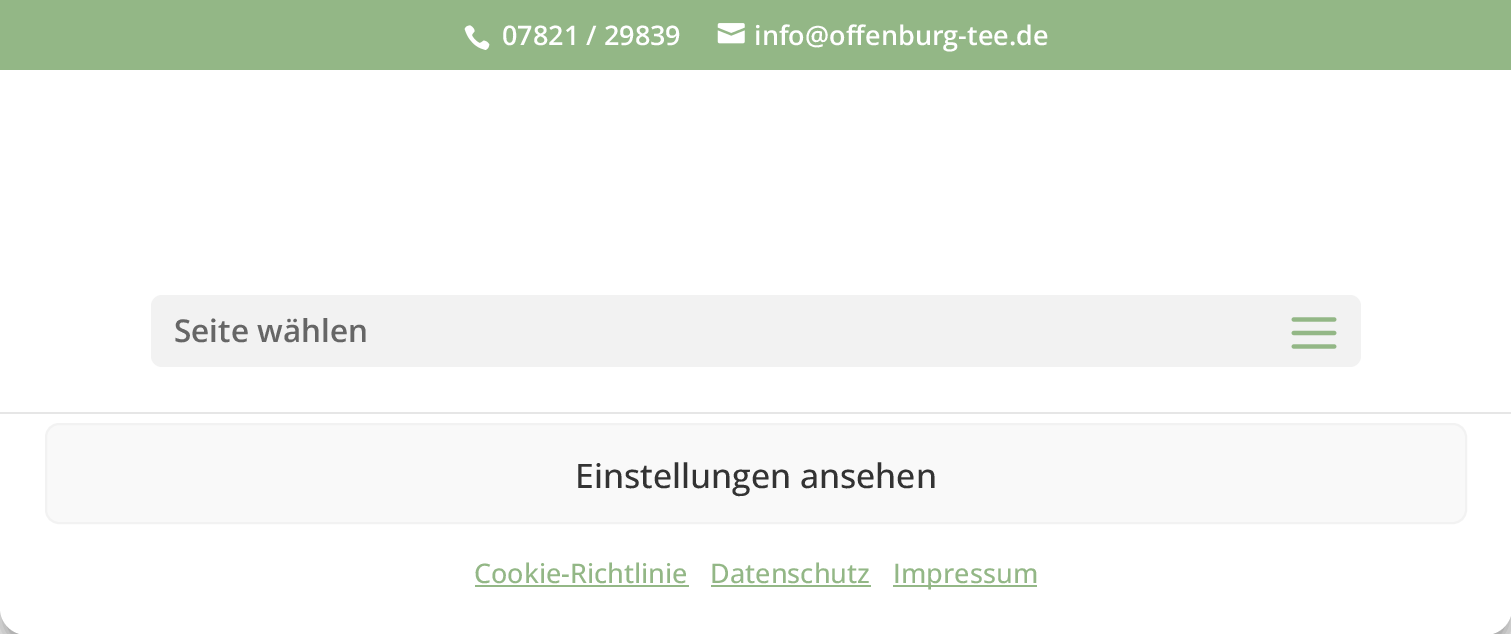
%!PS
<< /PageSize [1511 634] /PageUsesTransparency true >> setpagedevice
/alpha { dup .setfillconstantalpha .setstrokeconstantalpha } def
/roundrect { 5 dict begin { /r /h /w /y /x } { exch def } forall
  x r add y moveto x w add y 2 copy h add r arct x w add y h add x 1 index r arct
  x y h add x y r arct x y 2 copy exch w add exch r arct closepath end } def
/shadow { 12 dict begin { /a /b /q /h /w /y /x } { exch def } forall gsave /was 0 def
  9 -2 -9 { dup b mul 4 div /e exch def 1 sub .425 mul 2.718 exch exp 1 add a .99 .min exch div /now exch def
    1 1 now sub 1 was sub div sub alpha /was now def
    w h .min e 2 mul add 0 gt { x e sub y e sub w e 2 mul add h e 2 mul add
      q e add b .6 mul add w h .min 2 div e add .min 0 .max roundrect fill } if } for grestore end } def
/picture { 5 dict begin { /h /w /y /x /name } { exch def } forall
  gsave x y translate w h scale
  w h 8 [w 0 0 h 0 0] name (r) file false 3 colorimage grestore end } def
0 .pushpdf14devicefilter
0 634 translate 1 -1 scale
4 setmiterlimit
1 setgray
0 0 1511 634 rectfill
0 setgray
0 59 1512 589 27 7 0.23 shadow
0 68 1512 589 27 22.5 0.19 shadow
1 setgray
0 45 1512 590 27 roundrect fill
0.576 0.718 0.525 setrgbcolor
0 0 1511 70 rectfill
(img1.rgb) 464 25 26 25 picture
/OpenSans-SemiBold [27 0 0 -27 0 0] selectfont
1 setgray
502 45 moveto (07821 / 29839) show
(img2.rgb) 717 23 28 21 picture
754 45 moveto (info@offenburg-tee.de) show
0.902 setgray
0 412 1511 2 rectfill
0.949 setgray
151 295 1210 72 11 roundrect fill
/OpenSans-SemiBold [31.5 0 0 -31.5 0 0] selectfont
0.4 setgray
174 342 moveto (Seite wählen) show
(img3.rgb) 1291 317 46 32 picture
0.976 setgray
46 424 1420 99 13 roundrect gsave fill grestore
0.949 setgray
2 setlinewidth
stroke
/OpenSans-Medium [33.75 0 0 -33.75 0 0] selectfont
0.2 setgray
575 488 moveto (Einstellungen ansehen) show
/OpenSans-Medium [27 0 0 -27 0 0] selectfont
0.576 0.718 0.525 setrgbcolor
474 583 moveto (Cookie-Richtlinie) show
475 585 214 2 rectfill
710 583 moveto (Datenschutz) show
711 585 160 2 rectfill
893 585 144 2 rectfill
893 583 moveto (Impressum) show
.poppdf14devicefilter showpage
